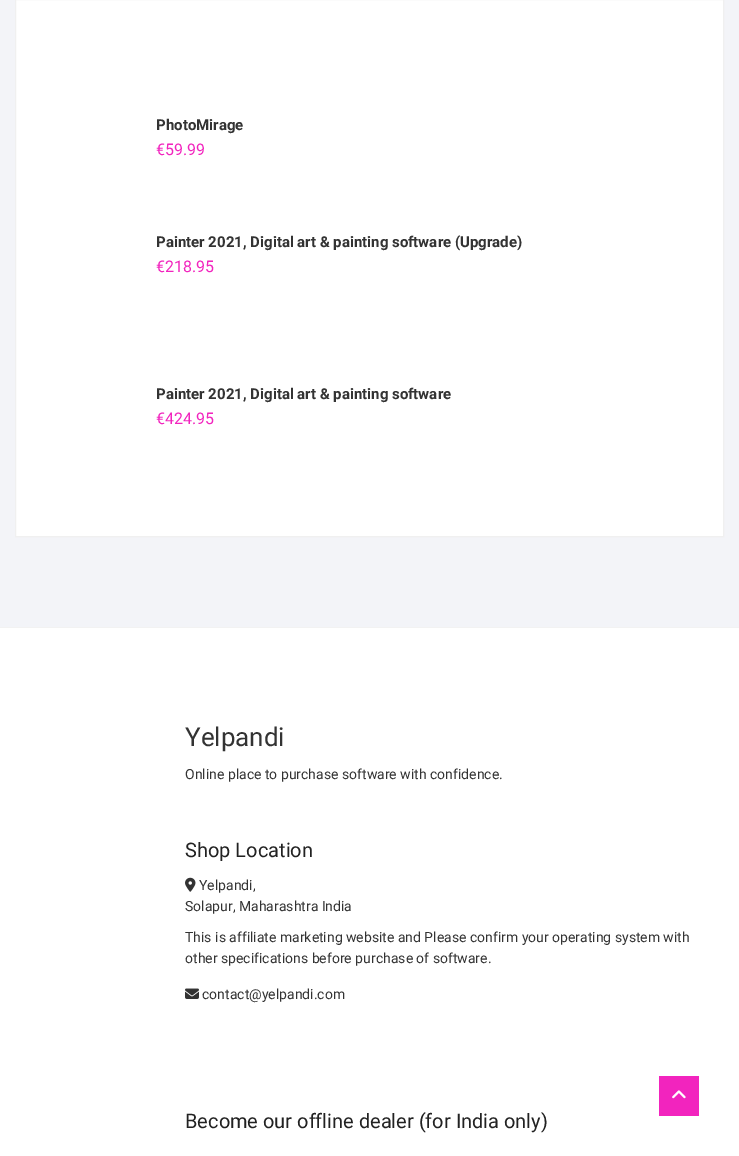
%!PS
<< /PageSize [739 1156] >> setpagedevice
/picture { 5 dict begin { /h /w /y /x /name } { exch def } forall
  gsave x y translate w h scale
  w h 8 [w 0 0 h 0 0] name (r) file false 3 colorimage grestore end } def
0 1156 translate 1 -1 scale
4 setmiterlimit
0.953 0.957 0.973 setrgbcolor
0 0 739 1156 rectfill
1 setgray
newpath 15.5 -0.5 moveto 723.5 -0.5 lineto 723.5 536.5 lineto 15.5 536.5 lineto closepath gsave fill grestore
0.941 setgray
stroke
/Roboto-Bold [15 0 0 -15 0 0] selectfont
0.2 setgray
156 130 moveto (PhotoMirage) show
/Roboto-Regular [16 0 0 -16 0 0] selectfont
0.949 0.141 0.745 setrgbcolor
156 155 moveto (€59.99) show
/Roboto-Bold [15 0 0 -15 0 0] selectfont
0.2 setgray
156 247 moveto (Painter 2021, Digital art & painting software \(Upgrade\)) show
/Roboto-Regular [16 0 0 -16 0 0] selectfont
0.949 0.141 0.745 setrgbcolor
156 272 moveto (€218.95) show
/Roboto-Bold [15 0 0 -15 0 0] selectfont
0.2 setgray
156 399 moveto (Painter 2021, Digital art & painting software) show
/Roboto-Regular [16 0 0 -16 0 0] selectfont
0.949 0.141 0.745 setrgbcolor
156 424 moveto (€424.95) show
1 setgray
0 628 739 528 rectfill
0.949 setgray
0 627 739 1 rectfill
/Roboto-Regular [26 0 0 -26 0 0] selectfont
0.2 setgray
185 746 moveto (Yelpandi) show
/Roboto-Regular [14 0 0 -14 0 0] selectfont
185 779 moveto (Online place to purchase software with confidence.) show
/Roboto-Regular [20 0 0 -20 0 0] selectfont
0.133 setgray
185 857 moveto (Shop Location) show
(img1.rgb) 185 877 11 15 picture
/Roboto-Regular [14 0 0 -14 0 0] selectfont
0.2 setgray
199 890 moveto (Yelpandi,) show
185 911 moveto (Solapur, Maharashtra India) show
185 942 moveto (This is affiliate marketing website and Please confirm your operating system with) show
185 963 moveto (other specifications before purchase of software.) show
(img2.rgb) 185 988 14 11 picture
202 999 moveto (contact@yelpandi.com) show
/Roboto-Regular [20 0 0 -20 0 0] selectfont
0.133 setgray
185 1128 moveto (Become our offline dealer \(for India only\)) show
0.949 0.141 0.745 setrgbcolor
659 1076 40 40 rectfill
(img3.rgb) 672 1090 14 9 picture
showpage
